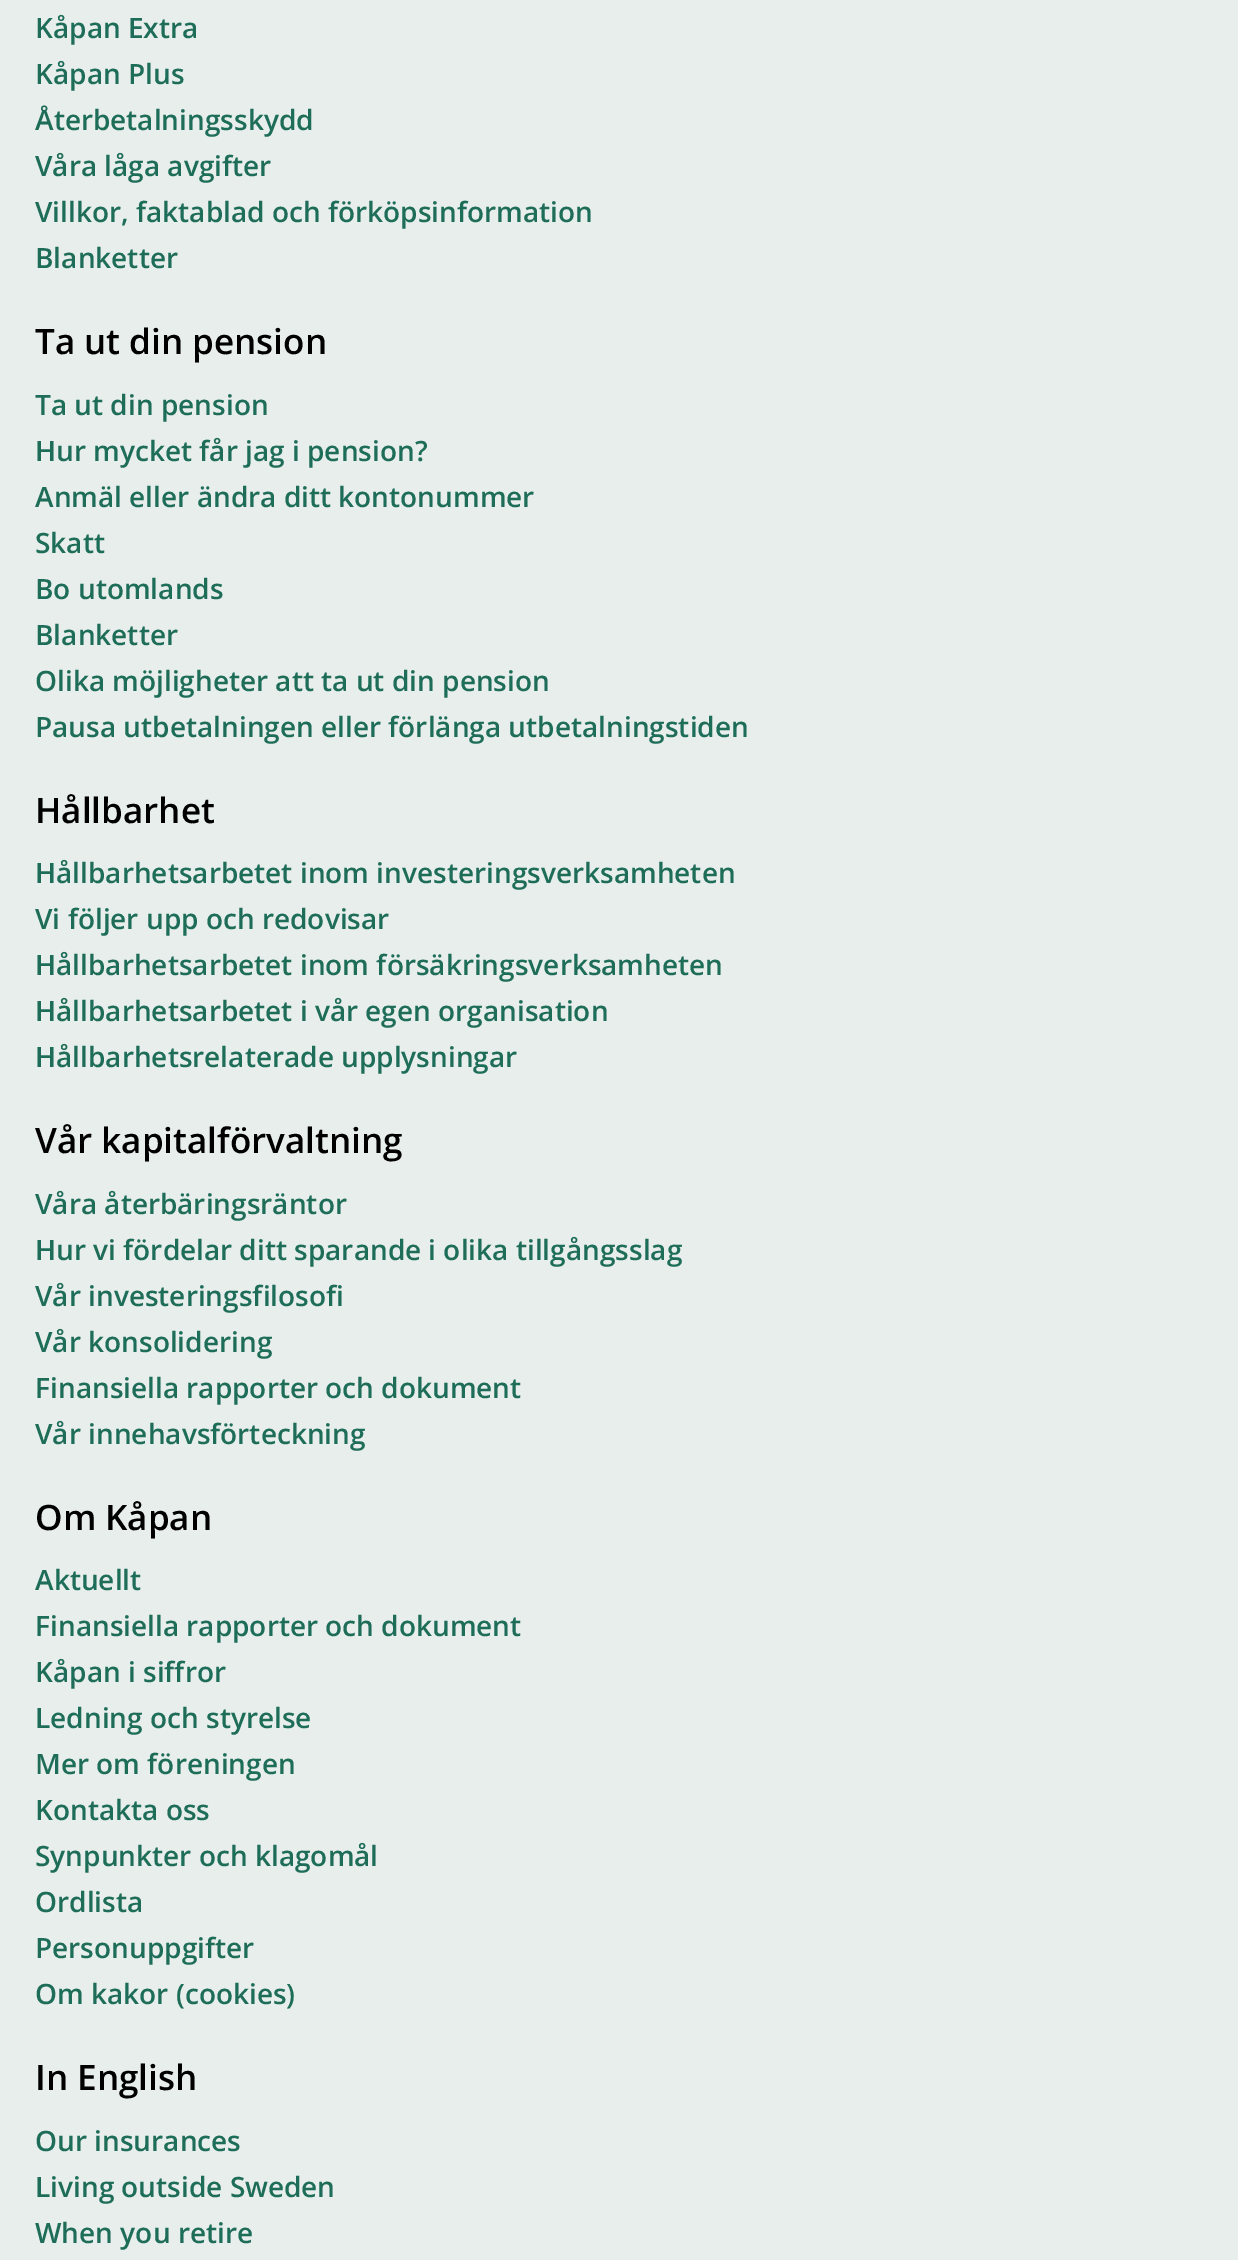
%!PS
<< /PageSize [1238 2260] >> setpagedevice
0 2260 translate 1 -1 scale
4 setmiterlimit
0.91 0.933 0.922 setrgbcolor
0 0 1238 2260 rectfill
/OpenSans-SemiBold [28 0 0 -28 0 0] selectfont
0.118 0.427 0.345 setrgbcolor
35 38 moveto (Kåpan Extra) show
35 84 moveto (Kåpan Plus) show
35 130 moveto (Återbetalningsskydd) show
35 176 moveto (Våra låga avgifter) show
35 222 moveto (Villkor, faktablad och förköpsinformation) show
35 268 moveto (Blanketter) show
/OpenSans-SemiBold [35 0 0 -35 0 0] selectfont
0 setgray
35 354 moveto (Ta ut din pension) show
/OpenSans-SemiBold [28 0 0 -28 0 0] selectfont
0.118 0.427 0.345 setrgbcolor
35 415 moveto (Ta ut din pension) show
35 461 moveto (Hur mycket får jag i pension?) show
35 507 moveto (Anmäl eller ändra ditt kontonummer) show
35 553 moveto (Skatt) show
35 599 moveto (Bo utomlands) show
35 645 moveto (Blanketter) show
35 691 moveto (Olika möjligheter att ta ut din pension) show
35 737 moveto (Pausa utbetalningen eller förlänga utbetalningstiden) show
/OpenSans-SemiBold [35 0 0 -35 0 0] selectfont
0 setgray
35 823 moveto (Hållbarhet) show
/OpenSans-SemiBold [28 0 0 -28 0 0] selectfont
0.118 0.427 0.345 setrgbcolor
35 883 moveto (Hållbarhetsarbetet inom investeringsverksamheten) show
35 929 moveto (Vi följer upp och redovisar) show
35 975 moveto (Hållbarhetsarbetet inom försäkringsverksamheten) show
35 1021 moveto (Hållbarhetsarbetet i vår egen organisation) show
35 1067 moveto (Hållbarhetsrelaterade upplysningar) show
/OpenSans-SemiBold [35 0 0 -35 0 0] selectfont
0 setgray
35 1153 moveto (Vår kapitalförvaltning) show
/OpenSans-SemiBold [28 0 0 -28 0 0] selectfont
0.118 0.427 0.345 setrgbcolor
35 1214 moveto (Våra återbäringsräntor) show
35 1260 moveto (Hur vi fördelar ditt sparande i olika tillgångsslag) show
35 1306 moveto (Vår investeringsfilosofi) show
35 1352 moveto (Vår konsolidering) show
35 1398 moveto (Finansiella rapporter och dokument) show
35 1444 moveto (Vår innehavsförteckning) show
/OpenSans-SemiBold [35 0 0 -35 0 0] selectfont
0 setgray
35 1530 moveto (Om Kåpan) show
/OpenSans-SemiBold [28 0 0 -28 0 0] selectfont
0.118 0.427 0.345 setrgbcolor
35 1590 moveto (Aktuellt) show
35 1636 moveto (Finansiella rapporter och dokument) show
35 1682 moveto (Kåpan i siffror) show
35 1728 moveto (Ledning och styrelse) show
35 1774 moveto (Mer om föreningen) show
35 1820 moveto (Kontakta oss) show
35 1866 moveto (Synpunkter och klagomål) show
35 1912 moveto (Ordlista) show
35 1958 moveto (Personuppgifter) show
35 2004 moveto (Om kakor \(cookies\)) show
/OpenSans-SemiBold [35 0 0 -35 0 0] selectfont
0 setgray
35 2090 moveto (In English) show
/OpenSans-SemiBold [28 0 0 -28 0 0] selectfont
0.118 0.427 0.345 setrgbcolor
35 2151 moveto (Our insurances) show
35 2197 moveto (Living outside Sweden) show
35 2243 moveto (When you retire) show
showpage
